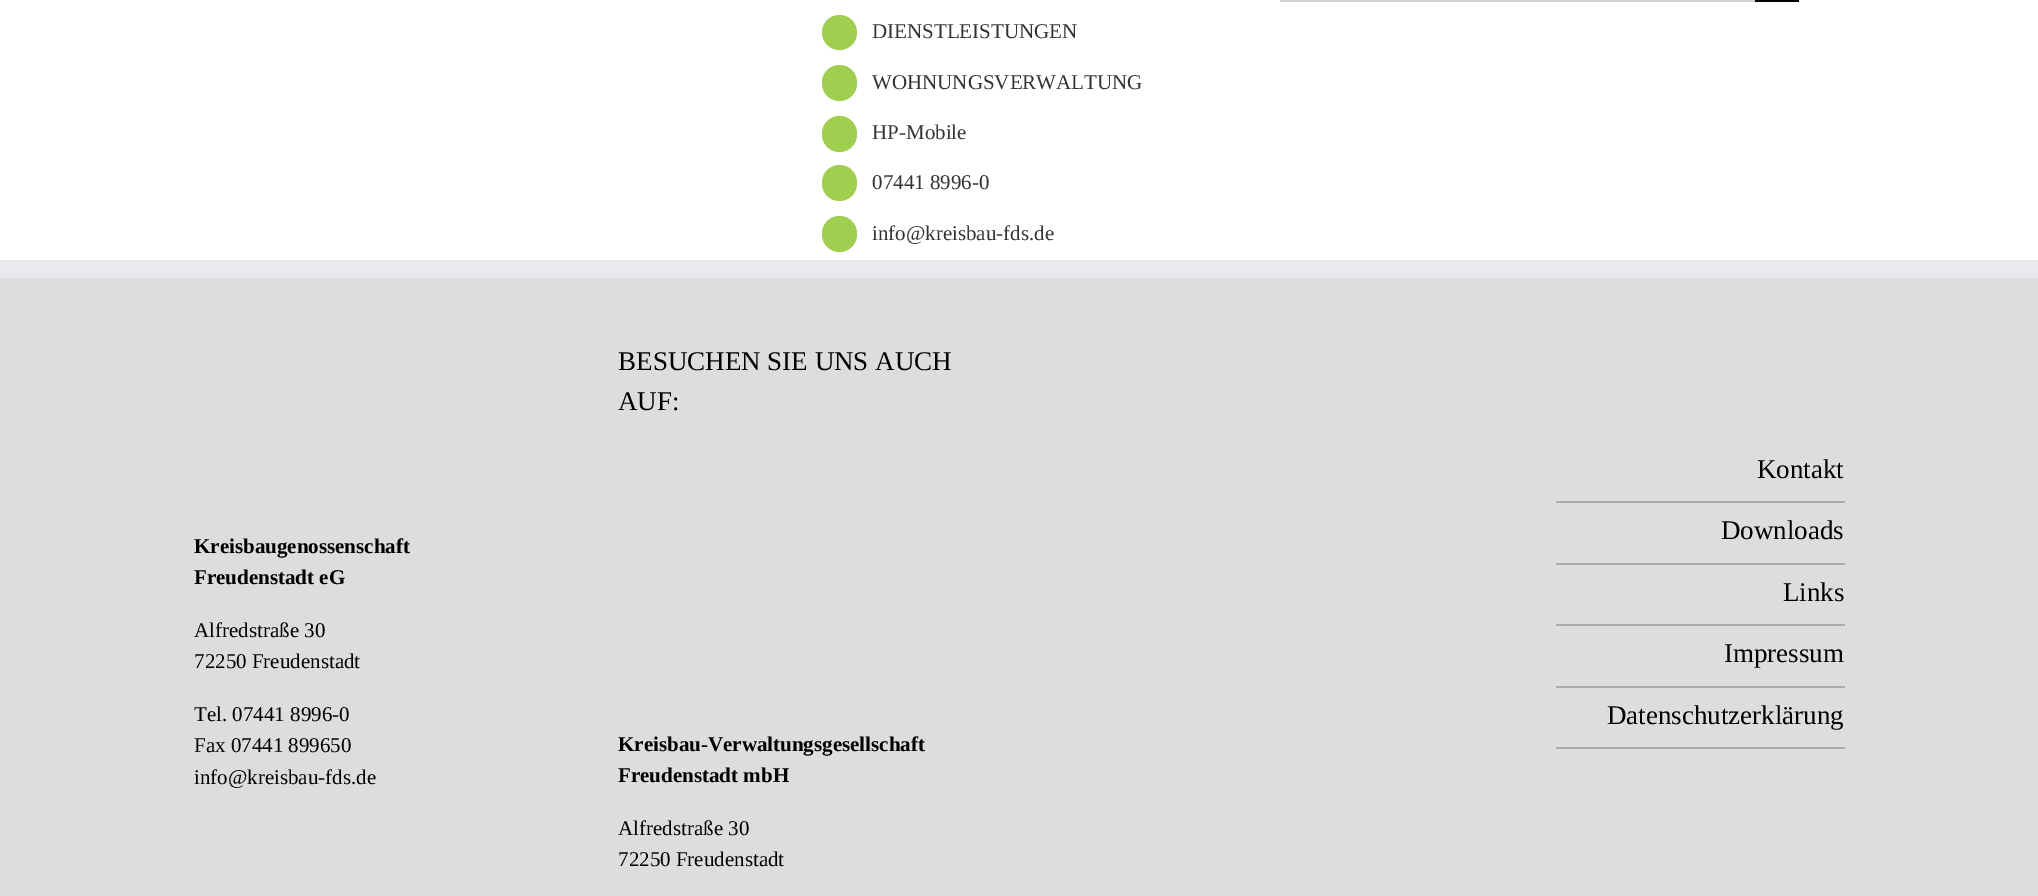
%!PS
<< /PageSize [2038 896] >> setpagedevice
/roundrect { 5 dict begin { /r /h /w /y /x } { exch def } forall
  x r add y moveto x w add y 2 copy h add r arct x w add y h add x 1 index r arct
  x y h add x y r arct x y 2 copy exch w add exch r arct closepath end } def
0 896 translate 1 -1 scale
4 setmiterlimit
1 setgray
0 0 2038 896 rectfill
0.824 setgray
1280 0 475 2 rectfill
0 setgray
1755 0 44 2 rectfill
0.627 0.808 0.306 setrgbcolor
newpath 839.5 32.5 17.5 0 360 arc closepath fill
/LiberationSerif-Regular [21 0 0 -21 0 0] selectfont
0.2 setgray
872 38 moveto (DIENSTLEISTUNGEN) show
0.627 0.808 0.306 setrgbcolor
822 65 35 36 17.5 roundrect fill
0.2 setgray
872 89 moveto (WOHNUNGSVERWALTUNG) show
0.627 0.808 0.306 setrgbcolor
822 116 35 36 17.5 roundrect fill
0.2 setgray
872 139 moveto (HP-Mobile) show
0.627 0.808 0.306 setrgbcolor
822 165 35 36 17.5 roundrect fill
0.2 setgray
872 189 moveto (07441 8996-0) show
0.627 0.808 0.306 setrgbcolor
822 216 35 36 17.5 roundrect fill
0.2 setgray
872 240 moveto (info@kreisbau-fds.de) show
0.867 setgray
0 278 2038 618 rectfill
0.914 0.918 0.933 setrgbcolor
0 260 2038 18 rectfill
/LiberationSerif-Bold [21 0 0 -21 0 0] selectfont
0 setgray
194 553 moveto (Kreisbaugenossenschaft) show
194 584 moveto (Freudenstadt eG) show
/LiberationSerif-Regular [21 0 0 -21 0 0] selectfont
194 637 moveto (Alfredstraße 30) show
194 668 moveto (72250 Freudenstadt) show
194 721 moveto (Tel. 07441 8996-0) show
194 752 moveto (Fax 07441 899650) show
194 784 moveto (info@kreisbau-fds.de) show
/LiberationSerif-Regular [27 0 0 -27 0 0] selectfont
618 370 moveto (BESUCHEN SIE UNS AUCH) show
618 410 moveto (AUF:) show
/LiberationSerif-Bold [21 0 0 -21 0 0] selectfont
618 751 moveto (Kreisbau-Verwaltungsgesellschaft) show
618 782 moveto (Freudenstadt mbH) show
/LiberationSerif-Regular [21 0 0 -21 0 0] selectfont
618 835 moveto (Alfredstraße 30) show
618 866 moveto (72250 Freudenstadt) show
0.671 setgray
1556 501 289 2 rectfill
/LiberationSerif-Regular [27 0 0 -27 0 0] selectfont
0 setgray
1757 478 moveto (Kontakt) show
0.671 setgray
1556 563 289 2 rectfill
0 setgray
1721 539 moveto (Downloads) show
0.671 setgray
1556 624 289 2 rectfill
0 setgray
1783 601 moveto (Links) show
0.671 setgray
1556 686 289 2 rectfill
0 setgray
1724 662 moveto (Impressum) show
0.671 setgray
1556 747 289 2 rectfill
0 setgray
1607 724 moveto (Datenschutzerklärung) show
showpage
